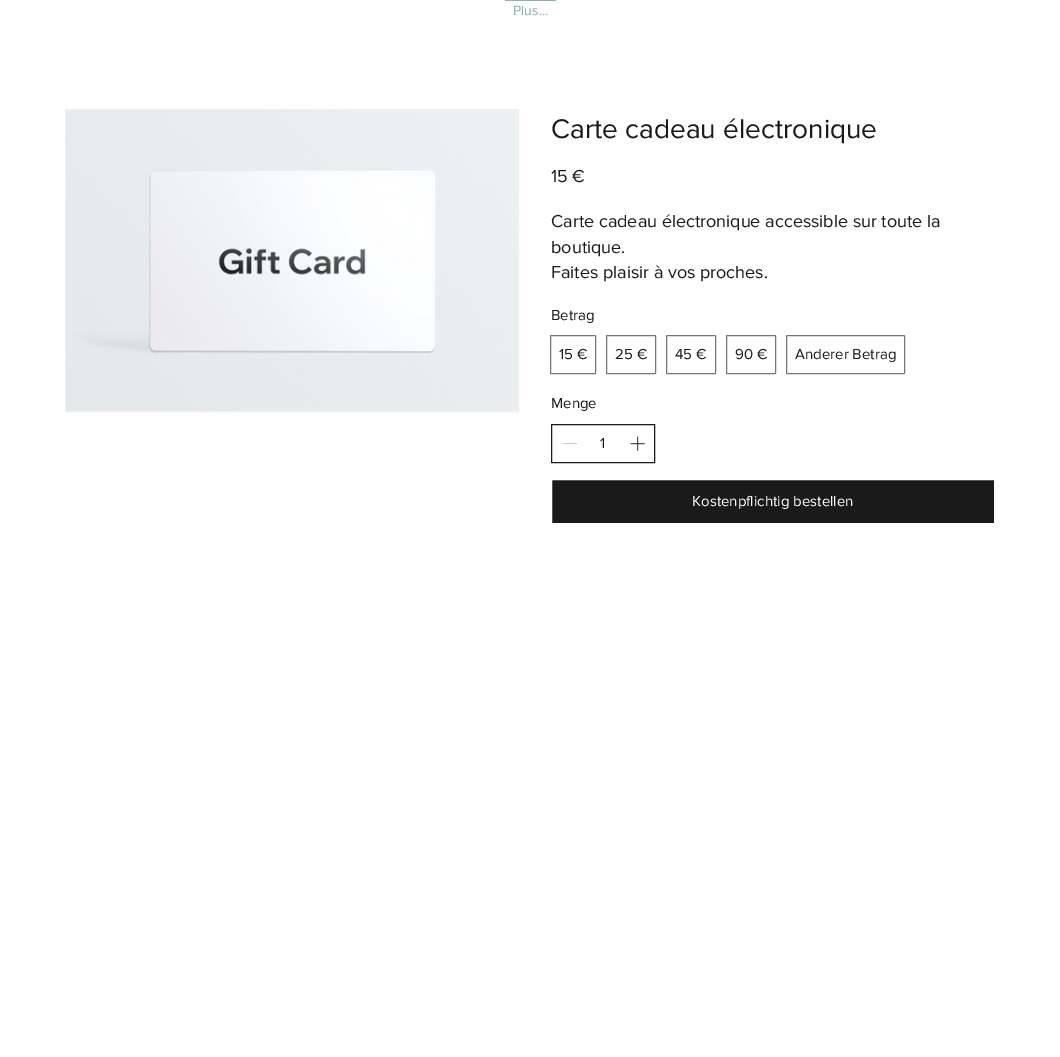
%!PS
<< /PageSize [1060 1057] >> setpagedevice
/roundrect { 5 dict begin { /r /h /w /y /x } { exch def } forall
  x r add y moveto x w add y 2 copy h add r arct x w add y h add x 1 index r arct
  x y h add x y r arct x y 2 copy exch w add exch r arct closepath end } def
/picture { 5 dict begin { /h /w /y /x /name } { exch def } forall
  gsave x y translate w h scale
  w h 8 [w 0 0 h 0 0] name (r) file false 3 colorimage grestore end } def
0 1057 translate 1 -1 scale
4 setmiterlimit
1 setgray
0 0 1060 1057 rectfill
0.545 0.69 0.69 setrgbcolor
505 0 51 1 rectfill
/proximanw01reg-Regular [14 0 0 -14 0 0] selectfont
513 15 moveto (Plus...) show
0.941 setgray
65.5 109.5 453 302 rectstroke
(img1.rgb) 66 110 452 301 picture
/proximanw01reg-Regular [28 0 0 -28 0 0] selectfont
0.102 setgray
551 138 moveto (Carte cadeau électronique) show
/proximanw01reg-Regular [18 0 0 -18 0 0] selectfont
551 182 moveto (15 €) show
551 227 moveto (Carte cadeau électronique accessible sur toute la) show
551 253 moveto (boutique.) show
551 278 moveto (Faites plaisir à vos proches.) show
/proximanw01reg-Regular [15 0 0 -15 0 0] selectfont
551 320 moveto (Betrag) show
0.463 setgray
550.5 335.5 45 38 0.5 roundrect stroke
0.102 setgray
559 359 moveto (15 €) show
0.463 setgray
606.5 335.5 49 38 0.5 roundrect stroke
0.102 setgray
615 359 moveto (25 €) show
0.463 setgray
666.5 335.5 49 38 0.5 roundrect stroke
0.102 setgray
675 359 moveto (45 €) show
0.463 setgray
726.5 335.5 49 38 0.5 roundrect stroke
0.102 setgray
735 359 moveto (90 €) show
0.463 setgray
786.5 335.5 118 38 0.5 roundrect stroke
0.102 setgray
795 359 moveto (Anderer Betrag) show
551 408 moveto (Menge) show
551.5 424.5 103 38 rectstroke
0.78 setgray
563 443 14 1 rectfill
0.102 setgray
600 448 moveto (1) show
(img2.rgb) 630 436 15 15 picture
551.5 479.5 443 44 0.5 roundrect gsave fill grestore
1 setgray
stroke
692 506 moveto (Kostenpflichtig bestellen) show
showpage
